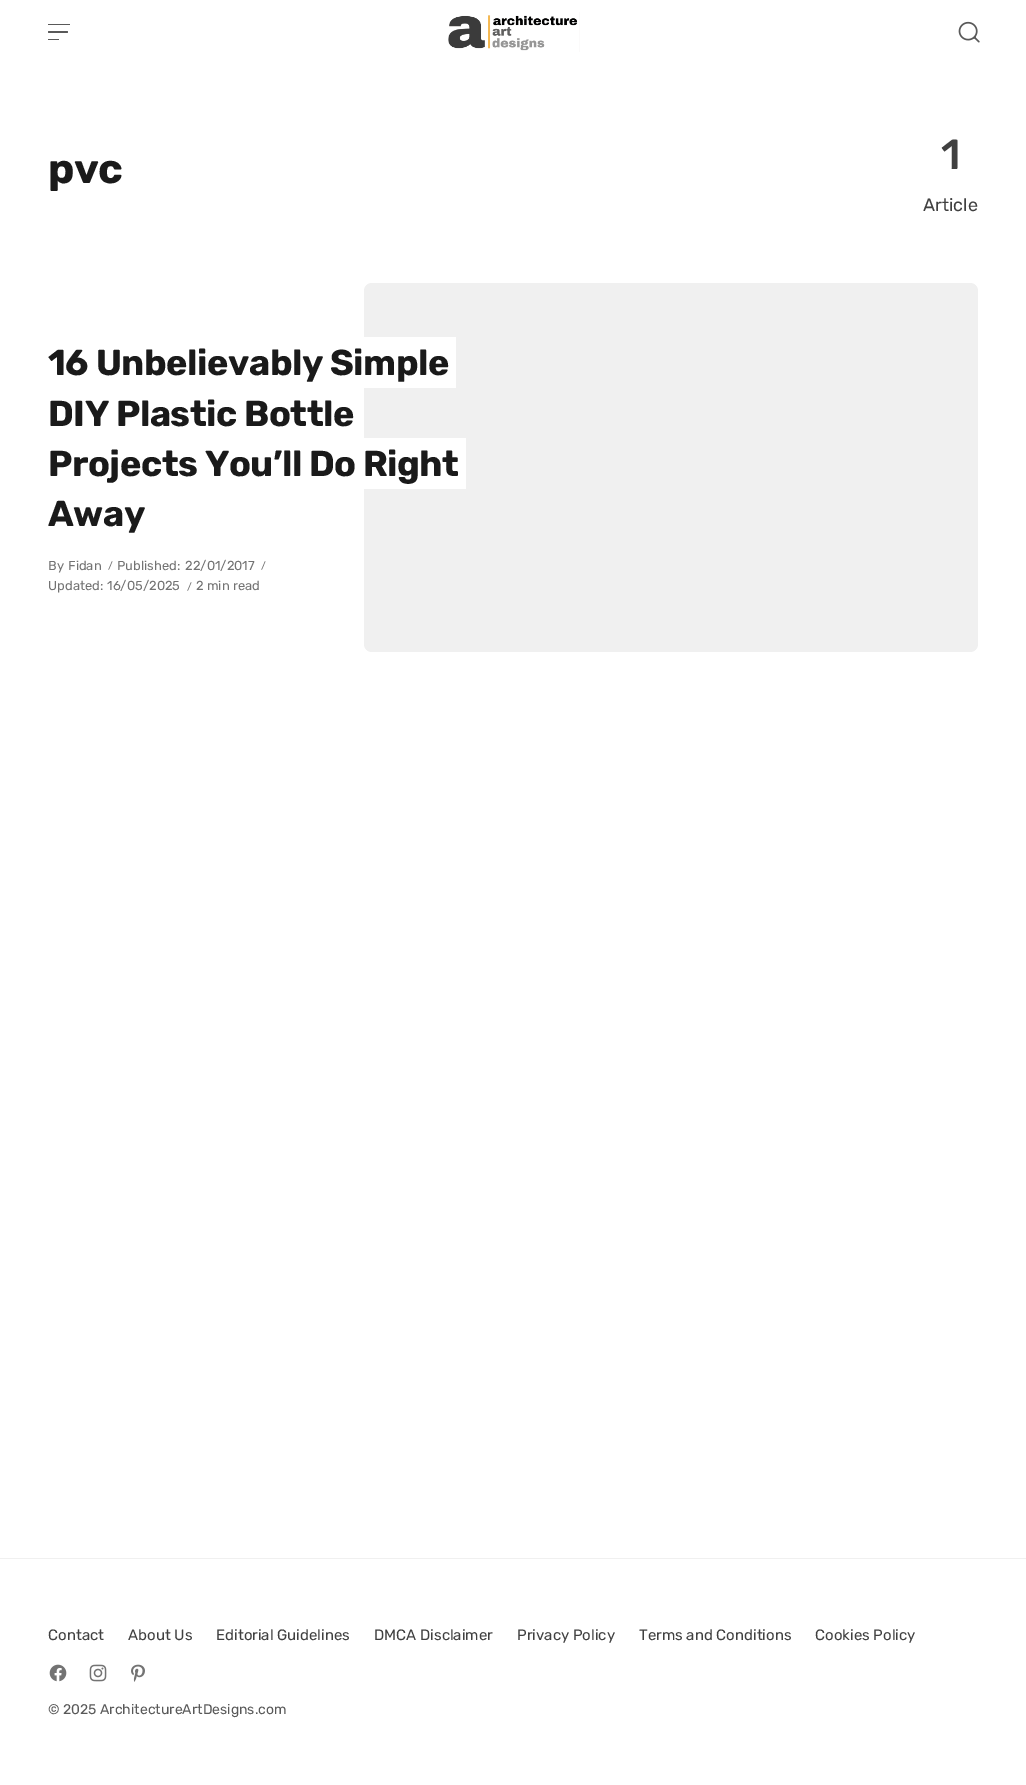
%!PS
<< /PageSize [1026 1785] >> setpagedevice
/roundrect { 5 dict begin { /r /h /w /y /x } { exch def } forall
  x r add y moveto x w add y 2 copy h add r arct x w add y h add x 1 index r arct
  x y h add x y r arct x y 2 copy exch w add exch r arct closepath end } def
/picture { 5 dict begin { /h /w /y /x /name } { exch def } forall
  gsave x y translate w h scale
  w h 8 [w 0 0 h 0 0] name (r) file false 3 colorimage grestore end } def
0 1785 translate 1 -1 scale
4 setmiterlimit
1 setgray
0 0 1026 1785 rectfill
0.349 setgray
48 24 22 1 0.5 roundrect fill
48 31 20 2 1 roundrect fill
48 39 11 1 0.5 roundrect fill
(img1.rgb) 448 12 132 40 picture
(img2.rgb) 958 21 22 22 picture
/Rubik-Bold [42 0 0 -42 0 0] selectfont
0.102 setgray
48 183 moveto -0.5 0 (pvc) ashow
/Rubik-Medium [42 0 0 -42 0 0] selectfont
0.251 setgray
941 169 moveto (1) show
/Rubik-Regular [18 0 0 -18 0 0] selectfont
923 211 moveto (Article) show
0.941 setgray
364 283 614 369 8 roundrect fill
1 setgray
newpath 56 337 moveto 56 341 lineto 448 341 lineto 448 380 lineto 456 380 lineto 456 337 lineto closepath fill
newpath 56 384 moveto 56 388 lineto 456 388 lineto 456 345 lineto 448 345 lineto 448 384 lineto closepath fill
364 341 84 43 rectfill
/Rubik-Bold [36 0 0 -36 0 0] selectfont
0.102 setgray
48 375 moveto -0.45 0 (16 Unbelievably Simple) ashow
48 426 moveto -0.45 0 (DIY Plastic Bottle) ashow
1 setgray
newpath 56 438 moveto 56 442 lineto 458 442 lineto 458 481 lineto 466 481 lineto 466 438 lineto closepath fill
newpath 56 485 moveto 56 489 lineto 466 489 lineto 466 446 lineto 458 446 lineto 458 485 lineto closepath fill
364 442 94 43 rectfill
0.102 setgray
48 476 moveto -0.45 0 (Projects You’ll Do Right) ashow
48 526 moveto -0.45 0 (Away) ashow
/Rubik-Regular [13 0 0 -13 0 0] selectfont
0.451 setgray
48 570 moveto (By) show
68 570 moveto (Fidan) show
/Rubik-Regular [10 0 0 -10 0 0] selectfont
108 569 moveto (/) show
/Rubik-Regular [13 0 0 -13 0 0] selectfont
117 570 moveto (Published:) show
185 570 moveto (22/01/2017) show
/Rubik-Regular [10 0 0 -10 0 0] selectfont
261 569 moveto (/) show
/Rubik-Regular [13 0 0 -13 0 0] selectfont
48 590 moveto (Updated:) show
107 590 moveto (16/05/2025) show
/Rubik-Regular [10 0 0 -10 0 0] selectfont
187 590 moveto (/) show
/Rubik-Regular [13 0 0 -13 0 0] selectfont
196 590 moveto (2 min read) show
0.941 setgray
0 1558 1026 1 rectfill
/Rubik-Regular [15 0 0 -15 0 0] selectfont
0.251 setgray
48 1640 moveto (Contact) show
128 1640 moveto (About Us) show
216 1640 moveto (Editorial Guidelines) show
374 1640 moveto (DMCA Disclaimer) show
517 1640 moveto (Privacy Policy) show
639 1640 moveto (Terms and Conditions) show
815 1640 moveto (Cookies Policy) show
(img3.rgb) 49 1664 18 18 picture
(img4.rgb) 89 1664 18 18 picture
(img5.rgb) 131 1664 14 18 picture
/Rubik-Regular [14 0 0 -14 0 0] selectfont
0.349 setgray
48 1714 moveto (© 2025 ArchitectureArtDesigns.com) show
showpage
